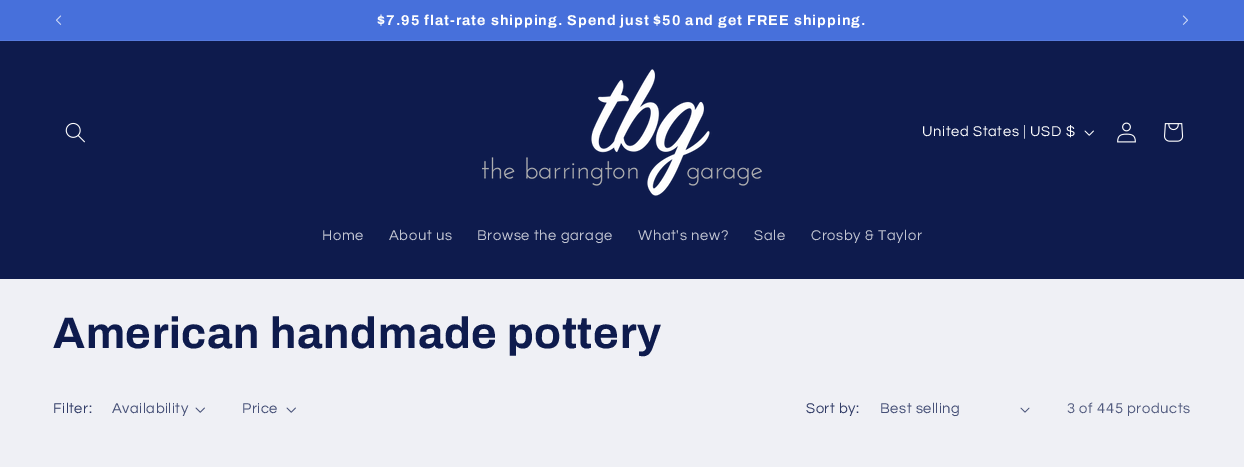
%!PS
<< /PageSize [1244 467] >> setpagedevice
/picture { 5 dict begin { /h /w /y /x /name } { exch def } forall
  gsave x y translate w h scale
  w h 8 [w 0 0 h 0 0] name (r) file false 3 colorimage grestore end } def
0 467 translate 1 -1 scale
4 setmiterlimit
0.937 0.941 0.961 setrgbcolor
0 0 1244 467 rectfill
0.278 0.439 0.859 setrgbcolor
0 0 1244 40 rectfill
0.337 0.482 0.871 setrgbcolor
0 40 1244 1 rectfill
(img1.rgb) 56 15 6 10 picture
/Archivo-Bold [14.3 0 0 -14.3 0 0] selectfont
1 setgray
377 25 moveto 1.05 0 ($7.95 flat-rate shipping. Spend just $50 and get FREE shipping.) ashow
(img2.rgb) 1182 15 6 10 picture
0.055 0.106 0.302 setrgbcolor
0 41 1244 238 rectfill
(img3.rgb) 65 122 20 21 picture
(img4.rgb) 482 69 280 127 picture
/Questrial-Regular [14.75 0 0 -14.75 0 0] selectfont
1 setgray
922 136 moveto 0.6 0 (United States | USD $) ashow
(img5.rgb) 1084 130 10 6 picture
(img6.rgb) 1117 122 19 21 picture
(img7.rgb) 1164 123 20 19 picture
0.765 0.776 0.827 setrgbcolor
322 240 moveto 0.6 0 (Home) ashow
389 240 moveto 0.6 0 (About us) ashow
477 240 moveto 0.6 0 (Browse the garage) ashow
638 240 moveto 0.6 0 (What's new?) ashow
754 240 moveto 0.6 0 (Sale) ashow
811 240 moveto 0.6 0 (Crosby & Taylor) ashow
/Archivo-Bold [44 0 0 -44 0 0] selectfont
0.055 0.106 0.302 setrgbcolor
53 348 moveto 0.65 0 (American handmade pottery) ashow
/Questrial-Regular [14.75 0 0 -14.75 0 0] selectfont
0.188 0.231 0.4 setrgbcolor
53 413 moveto 0.5 0 (Filter:) ashow
0.275 0.314 0.467 setrgbcolor
112 413 moveto 0.5 0 (Availability) ashow
(img8.rgb) 195 407 10 6 picture
242 413 moveto 0.5 0 (Price) ashow
(img8.rgb) 286 407 10 6 picture
0.188 0.231 0.4 setrgbcolor
806 413 moveto 0.5 0 (Sort by:) ashow
0.275 0.314 0.467 setrgbcolor
880 413 moveto 0.5 0 (Best selling) ashow
(img9.rgb) 1020 407 10 6 picture
0.322 0.357 0.498 setrgbcolor
1067 413 moveto 0.6 0 (3 of 445 products) ashow
showpage
